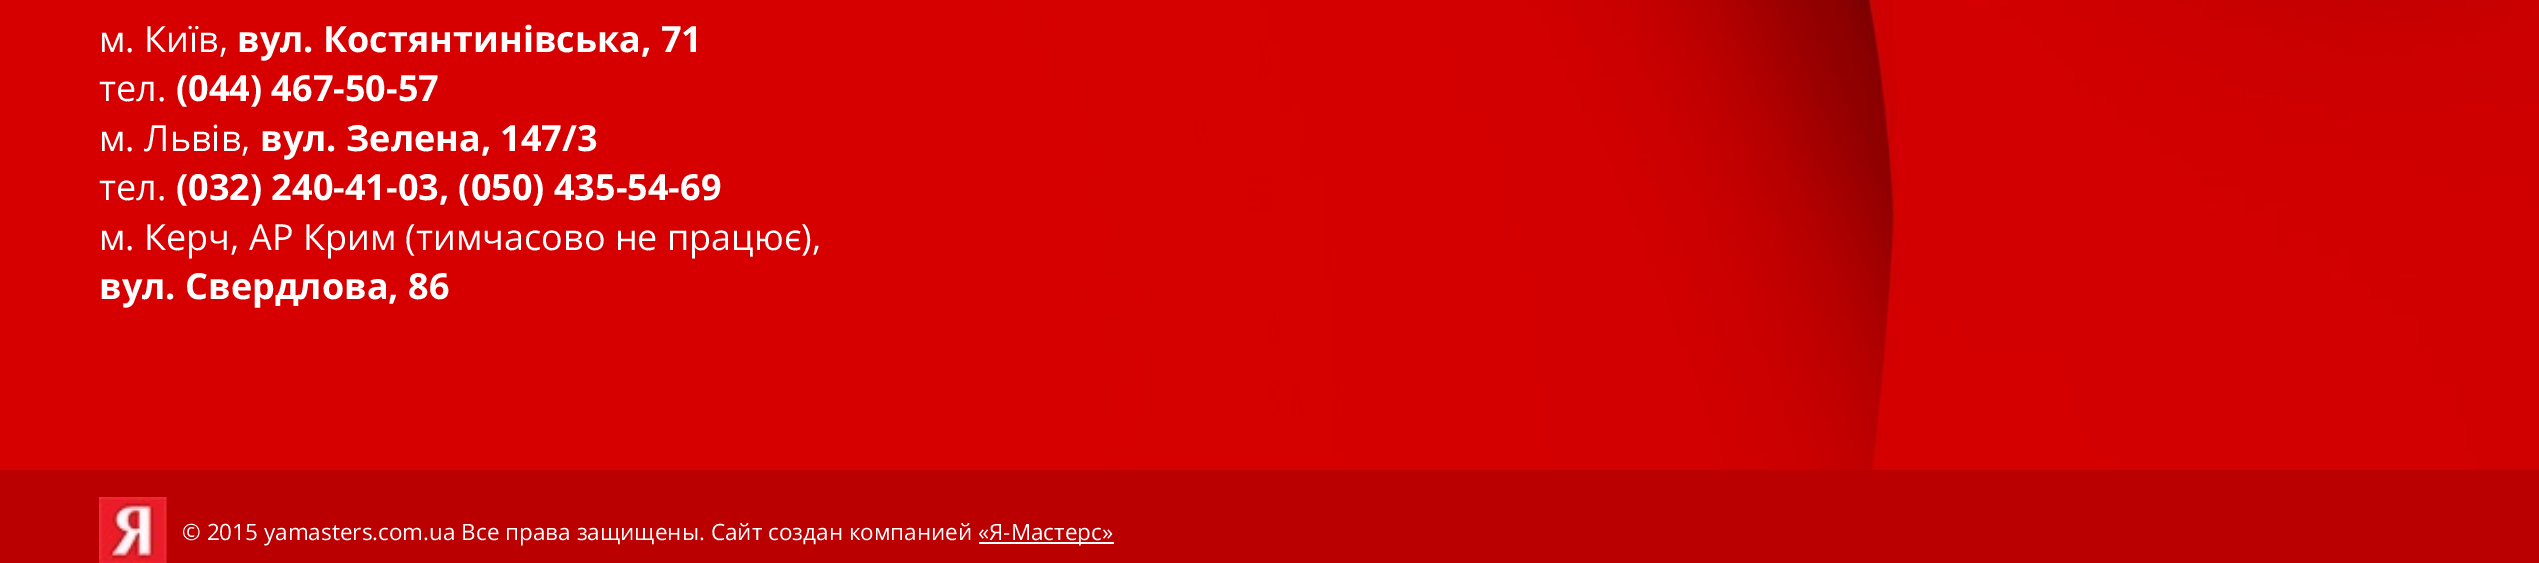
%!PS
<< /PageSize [2539 563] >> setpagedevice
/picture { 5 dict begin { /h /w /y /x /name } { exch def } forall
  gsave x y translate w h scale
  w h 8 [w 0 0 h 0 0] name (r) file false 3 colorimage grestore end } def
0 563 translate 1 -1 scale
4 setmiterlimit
1 setgray
0 0 2539 563 rectfill
(img1.rgb) 0 0 2539 470 picture
/OpenSans-Regular [36 0 0 -36 0 0] selectfont
99 52 moveto (м. Київ,) show
/OpenSans-Bold [36 0 0 -36 0 0] selectfont
237 52 moveto (вул. Костянтинівська, 71) show
/OpenSans-Regular [36 0 0 -36 0 0] selectfont
99 101 moveto (тел.) show
/OpenSans-Bold [36 0 0 -36 0 0] selectfont
176 101 moveto (\(044\) 467-50-57) show
/OpenSans-Regular [36 0 0 -36 0 0] selectfont
99 151 moveto (м. Львів,) show
/OpenSans-Bold [36 0 0 -36 0 0] selectfont
260 151 moveto (вул. Зелена, 147/3) show
/OpenSans-Regular [36 0 0 -36 0 0] selectfont
99 200 moveto (тел.) show
/OpenSans-Bold [36 0 0 -36 0 0] selectfont
176 200 moveto (\(032\) 240-41-03, \(050\) 435-54-69) show
/OpenSans-Regular [36 0 0 -36 0 0] selectfont
99 250 moveto (м. Керч, АР Крим \(тимчасово не працює\),) show
/OpenSans-Bold [36 0 0 -36 0 0] selectfont
99 299 moveto (вул. Свердлова, 86) show
0.729 0 0 setrgbcolor
0 470 2539 93 rectfill
(img2.rgb) 99 497 68 66 picture
/OpenSans-Regular [22.5 0 0 -22.5 0 0] selectfont
1 setgray
182 540 moveto (© 2015 yamasters.com.ua Все права защищены. Сайт создан компанией) show
979 542 135 2 rectfill
978 540 moveto («Я-Мастерс») show
showpage
